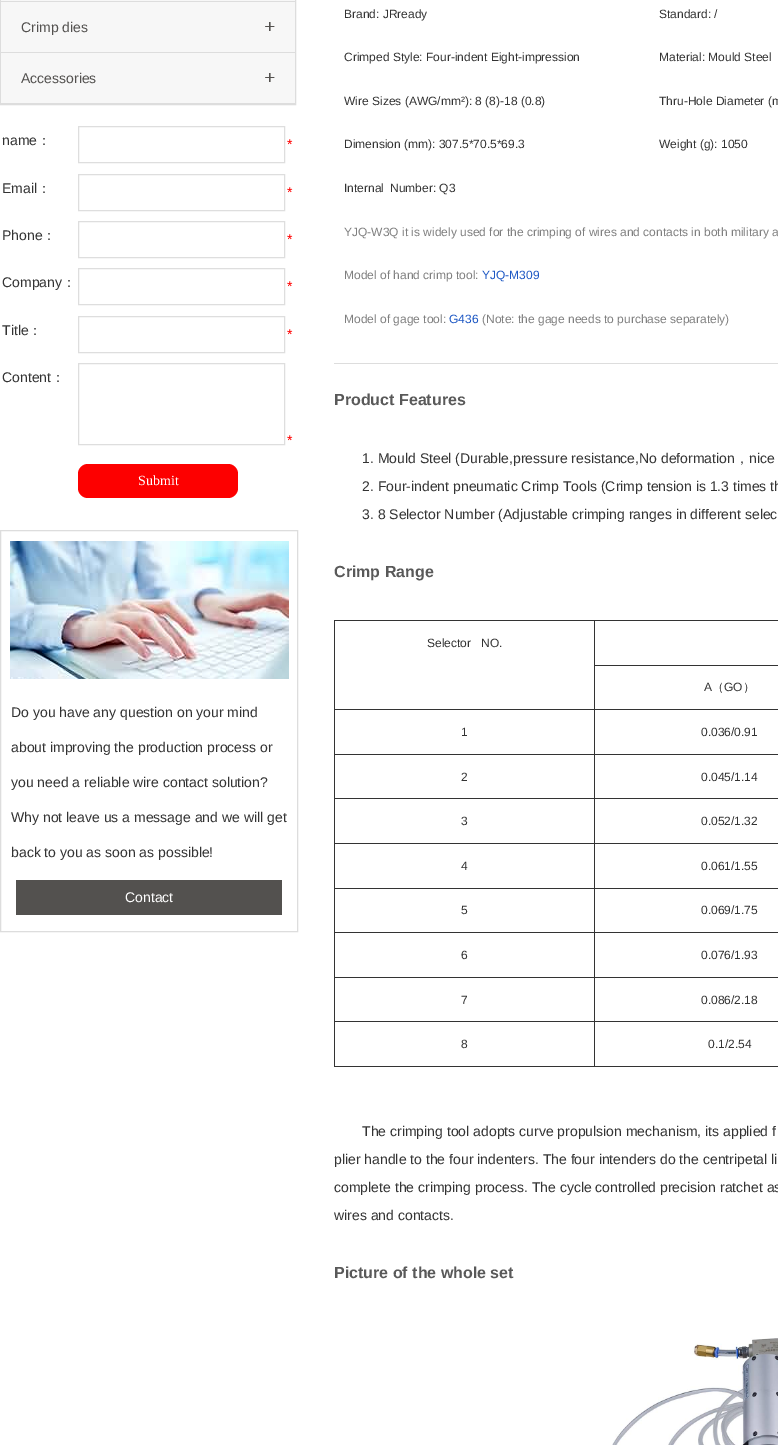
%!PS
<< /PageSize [778 1445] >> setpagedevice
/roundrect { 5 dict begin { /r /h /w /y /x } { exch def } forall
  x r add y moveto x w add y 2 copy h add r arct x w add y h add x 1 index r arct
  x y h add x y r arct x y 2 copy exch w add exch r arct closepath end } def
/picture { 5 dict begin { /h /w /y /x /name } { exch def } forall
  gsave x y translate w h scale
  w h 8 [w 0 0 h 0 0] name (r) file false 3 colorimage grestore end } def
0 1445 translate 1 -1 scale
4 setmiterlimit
1 setgray
0 0 778 1445 rectfill
0.867 setgray
0.5 -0.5 295 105 rectstroke
1 1 294 1 rectfill
0.969 setgray
1 0 294 1 rectfill
0.867 setgray
1 52 294 1 rectfill
0.969 setgray
1 2 294 50 rectfill
/LiberationSans-Regular [14 0 0 -14 0 0] selectfont
0.325 0.318 0.31 setrgbcolor
21 32 moveto (Crimp dies) show
(img1.rgb) 265 22 10 9 picture
0.867 setgray
1 103 294 1 rectfill
0.969 setgray
1 53 294 50 rectfill
0.325 0.318 0.31 setrgbcolor
21 83 moveto (Accessories) show
(img1.rgb) 265 73 10 9 picture
0.2 setgray
2 145 moveto (name) show
/WenQuanYiZenHei-Medium [14 0 0 -14 0 0] selectfont
37 145 moveto (：) show
0.871 setgray
78.5 126.5 206 36 rectstroke
/LiberationSans-Regular [14 0 0 -14 0 0] selectfont
1 0 0 setrgbcolor
287 149 moveto (*) show
0.2 setgray
2 193 moveto (Email) show
/WenQuanYiZenHei-Medium [14 0 0 -14 0 0] selectfont
37 193 moveto (：) show
0.871 setgray
78.5 174.5 206 36 rectstroke
/LiberationSans-Regular [14 0 0 -14 0 0] selectfont
1 0 0 setrgbcolor
287 197 moveto (*) show
0.2 setgray
2 240 moveto (Phone) show
/WenQuanYiZenHei-Medium [14 0 0 -14 0 0] selectfont
42 240 moveto (：) show
0.871 setgray
78.5 221.5 206 36 rectstroke
/LiberationSans-Regular [14 0 0 -14 0 0] selectfont
1 0 0 setrgbcolor
287 244 moveto (*) show
0.2 setgray
2 287 moveto (Company) show
/WenQuanYiZenHei-Medium [14 0 0 -14 0 0] selectfont
62 287 moveto (：) show
0.871 setgray
78.5 268.5 206 36 rectstroke
/LiberationSans-Regular [14 0 0 -14 0 0] selectfont
1 0 0 setrgbcolor
287 291 moveto (*) show
0.2 setgray
2 335 moveto (Title) show
/WenQuanYiZenHei-Medium [14 0 0 -14 0 0] selectfont
28 335 moveto (：) show
0.871 setgray
78.5 316.5 206 36 rectstroke
/LiberationSans-Regular [14 0 0 -14 0 0] selectfont
1 0 0 setrgbcolor
287 339 moveto (*) show
0.2 setgray
2 382 moveto (Content) show
/WenQuanYiZenHei-Medium [14 0 0 -14 0 0] selectfont
51 382 moveto (：) show
0.871 setgray
78.5 363.5 206 81 rectstroke
/LiberationSans-Regular [14 0 0 -14 0 0] selectfont
1 0 0 setrgbcolor
287 445 moveto (*) show
0.992 0 0 setrgbcolor
78 464 160 34 10 roundrect fill
/LiberationSerif-Regular [14 0 0 -14 0 0] selectfont
1 setgray
138 485 moveto (Submit) show
0.867 setgray
0.5 530.5 297 401 rectstroke
(img2.rgb) 10 541 279 138 picture
/LiberationSans-Regular [14 0 0 -14 0 0] selectfont
0.2 setgray
11 717 moveto (Do you have any question on your mind) show
11 752 moveto (about improving the production process or) show
11 787 moveto (you need a reliable wire contact solution?) show
11 822 moveto (Why not leave us a message and we will get) show
11 857 moveto (back to you as soon as possible!) show
0.325 0.318 0.31 setrgbcolor
16 880 266 35 rectfill
1 setgray
125 902 moveto (Contact) show
/LiberationSans-Regular [12 0 0 -12 0 0] selectfont
0.2 setgray
344 18 moveto (Brand: JRready) show
659 18 moveto (Standard: /) show
344 61 moveto (Crimped Style: Four-indent Eight-impression) show
659 61 moveto (Material: Mould Steel) show
344 105 moveto (Wire Sizes \(AWG/mm²\): 8 \(8\)-18 \(0.8\)) show
659 105 moveto (Thru-Hole Diameter \(m) show
344 148 moveto (Dimension \(mm\): 307.5*70.5*69.3) show
659 148 moveto (Weight \(g\): 1050) show
344 192 moveto (Internal Number: Q3) show
0.498 setgray
344 236 moveto (YJQ-W3Q it is widely used for the crimping of wires and contacts in both military a) show
344 279 moveto (Model of hand crimp tool:) show
0.11 0.341 0.769 setrgbcolor
482 279 moveto (YJQ-M309) show
0.498 setgray
344 323 moveto (Model of gage tool:) show
0.11 0.341 0.769 setrgbcolor
449 323 moveto (G436) show
0.498 setgray
482 323 moveto (\(Note: the gage needs to purchase separately\)) show
0.867 setgray
334 363 444 1 rectfill
/LiberationSans-Bold [16 0 0 -16 0 0] selectfont
0.349 setgray
334 405 moveto (Product Features) show
/LiberationSans-Regular [14 0 0 -14 0 0] selectfont
0.2 setgray
362 463 moveto (1. Mould Steel \(Durable,pressure resistance,No deformation) show
/WenQuanYiZenHei-Medium [14 0 0 -14 0 0] selectfont
735 463 moveto (，) show
/LiberationSans-Regular [14 0 0 -14 0 0] selectfont
749 463 moveto (nice) show
362 491 moveto (2. Four-indent pneumatic Crimp Tools \(Crimp tension is 1.3 times th) show
362 519 moveto (3. 8 Selector Number \(Adjustable crimping ranges in different selec) show
/LiberationSans-Bold [16 0 0 -16 0 0] selectfont
0.349 setgray
334 577 moveto (Crimp Range) show
0.2 setgray
594 620 184 1 rectfill
594 665 184 1 rectfill
594 709 184 1 rectfill
594 754 184 1 rectfill
594 798 184 1 rectfill
594 843 184 1 rectfill
594 888 184 1 rectfill
594 932 184 1 rectfill
594 977 184 1 rectfill
594 1021 184 1 rectfill
594 1066 184 1 rectfill
594 1021 1 46 rectfill
334 1021 261 1 rectfill
594 977 1 45 rectfill
334 977 261 1 rectfill
594 932 1 46 rectfill
334 932 261 1 rectfill
594 888 1 45 rectfill
334 888 261 1 rectfill
594 843 1 46 rectfill
334 843 261 1 rectfill
594 798 1 46 rectfill
334 798 261 1 rectfill
594 754 1 45 rectfill
334 754 261 1 rectfill
594 709 1 46 rectfill
334 709 261 1 rectfill
594 665 1 45 rectfill
594 620 1 46 rectfill
334 620 261 1 rectfill
334 1066 261 1 rectfill
334 1021 1 46 rectfill
334 977 1 45 rectfill
334 932 1 46 rectfill
334 888 1 45 rectfill
334 843 1 46 rectfill
334 798 1 46 rectfill
334 754 1 45 rectfill
334 709 1 46 rectfill
334 620 1 90 rectfill
/LiberationSans-Regular [12 0 0 -12 0 0] selectfont
427 647 moveto (Selector   NO.) show
704 691 moveto (A) show
/WenQuanYiZenHei-Medium [12 0 0 -12 0 0] selectfont
712 691 moveto (（) show
/LiberationSans-Regular [12 0 0 -12 0 0] selectfont
724 691 moveto (GO) show
/WenQuanYiZenHei-Medium [12 0 0 -12 0 0] selectfont
743 691 moveto (）) show
/LiberationSans-Regular [12 0 0 -12 0 0] selectfont
461 736 moveto (1) show
701 736 moveto (0.036/0.91) show
461 781 moveto (2) show
701 781 moveto (0.045/1.14) show
461 825 moveto (3) show
701 825 moveto (0.052/1.32) show
461 870 moveto (4) show
701 870 moveto (0.061/1.55) show
461 914 moveto (5) show
701 914 moveto (0.069/1.75) show
461 959 moveto (6) show
701 959 moveto (0.076/1.93) show
461 1004 moveto (7) show
701 1004 moveto (0.086/2.18) show
461 1048 moveto (8) show
708 1048 moveto (0.1/2.54) show
/LiberationSans-Regular [14 0 0 -14 0 0] selectfont
362 1136 moveto (The crimping tool adopts curve propulsion mechanism, its applied f) show
334 1164 moveto (plier handle to the four indenters. The four intenders do the centripetal li) show
334 1192 moveto (complete the crimping process. The cycle controlled precision ratchet as) show
334 1220 moveto (wires and contacts.) show
/LiberationSans-Bold [16 0 0 -16 0 0] selectfont
0.349 setgray
334 1278 moveto (Picture of the whole set) show
(img3.rgb) 612 1338 166 107 picture
showpage
